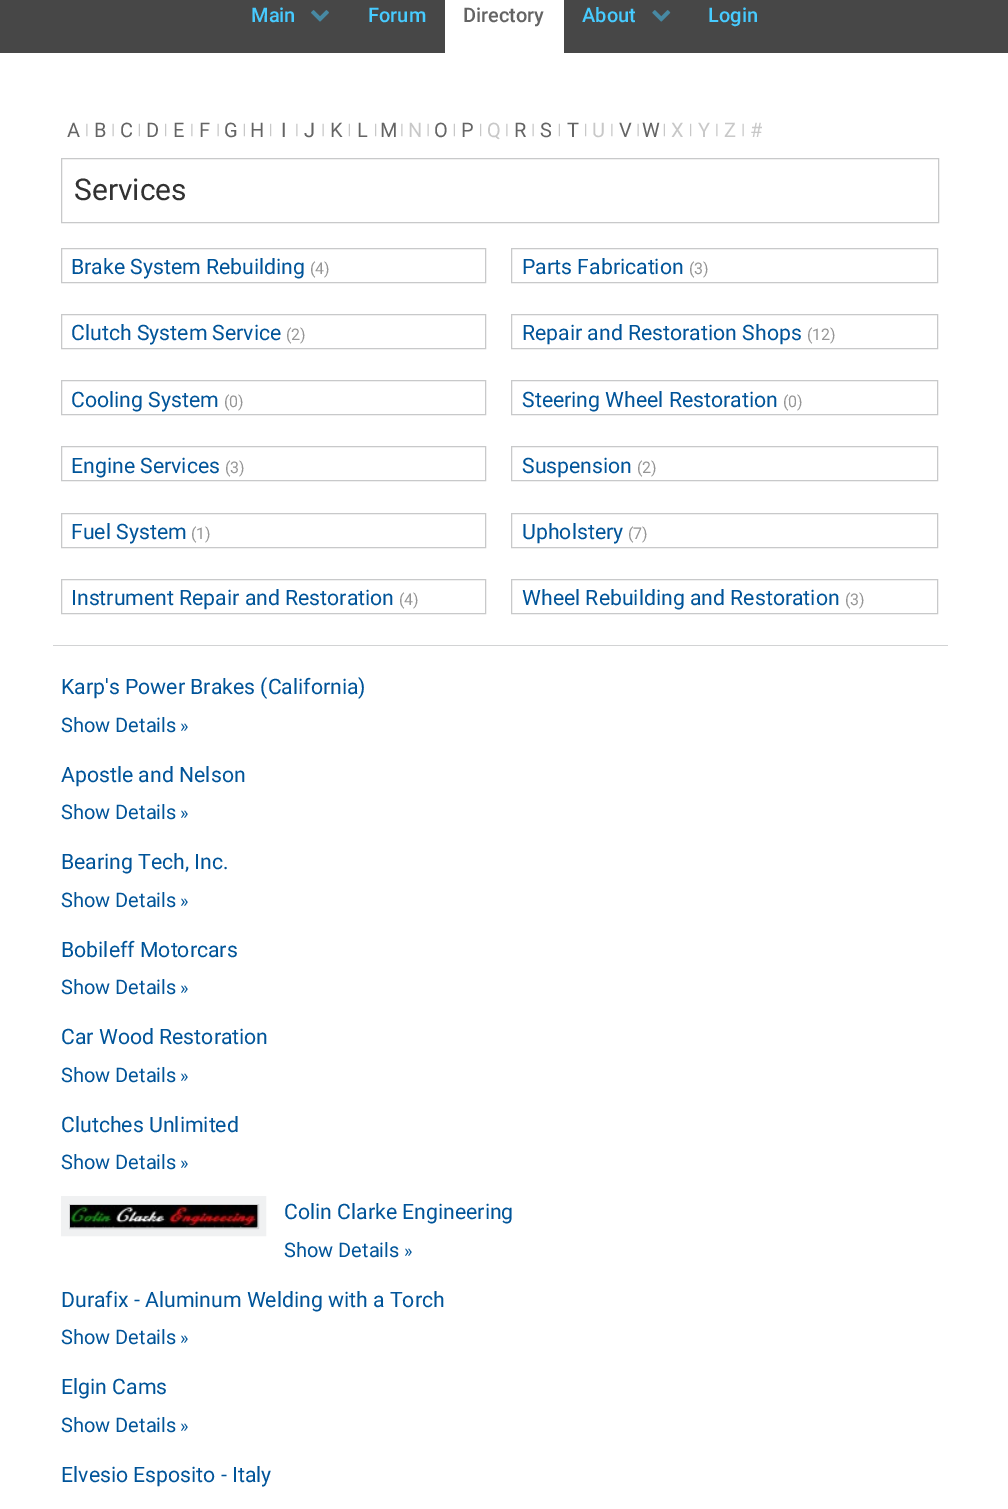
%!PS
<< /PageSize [1008 1509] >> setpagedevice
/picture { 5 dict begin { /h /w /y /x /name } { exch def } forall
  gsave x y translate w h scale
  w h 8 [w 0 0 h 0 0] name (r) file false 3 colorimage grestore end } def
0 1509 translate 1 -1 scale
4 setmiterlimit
1 setgray
0 0 1008 1509 rectfill
0.278 setgray
0 0 1008 53 rectfill
/Roboto-Medium [20 0 0 -20 0 0] selectfont
0.278 0.796 1 setrgbcolor
251 22 moveto (Main) show
(img1.rgb) 311 10 18 12 picture
368 22 moveto (Forum) show
1 setgray
445 0 119 53 rectfill
0.392 setgray
463 22 moveto (Directory) show
0.278 0.796 1 setrgbcolor
582 22 moveto (About) show
(img2.rgb) 652 10 19 12 picture
708 22 moveto (Login) show
(img3.rgb) 86 123 2 14 picture
/Roboto-Regular [20 0 0 -20 0 0] selectfont
0.392 setgray
67 137 moveto (A) show
(img4.rgb) 112 123 2 14 picture
94 137 moveto (B) show
(img5.rgb) 138 123 2 14 picture
120 137 moveto (C) show
(img6.rgb) 165 123 2 14 picture
146 137 moveto (D) show
(img3.rgb) 191 123 2 14 picture
173 137 moveto (E) show
(img4.rgb) 217 123 2 14 picture
199 137 moveto (F) show
(img5.rgb) 243 123 2 14 picture
224 137 moveto (G) show
(img6.rgb) 270 123 2 14 picture
250 137 moveto (H) show
(img3.rgb) 296 123 2 14 picture
281 137 moveto (I) show
(img4.rgb) 322 123 2 14 picture
304 137 moveto (J) show
(img5.rgb) 348 123 2 14 picture
330 137 moveto (K) show
(img6.rgb) 375 123 2 14 picture
357 137 moveto (L) show
(img3.rgb) 401 123 2 14 picture
380 137 moveto (M) show
(img4.rgb) 427 123 2 14 picture
0.784 setgray
408 137 moveto (N) show
(img5.rgb) 453 123 2 14 picture
0.392 setgray
434 137 moveto (O) show
(img6.rgb) 480 123 2 14 picture
461 137 moveto (P) show
(img3.rgb) 506 123 2 14 picture
0.784 setgray
487 137 moveto (Q) show
(img4.rgb) 532 123 2 14 picture
0.392 setgray
514 137 moveto (R) show
(img5.rgb) 558 123 2 14 picture
540 137 moveto (S) show
(img6.rgb) 585 123 2 14 picture
567 137 moveto (T) show
(img3.rgb) 611 123 2 14 picture
0.784 setgray
592 137 moveto (U) show
(img4.rgb) 637 123 2 14 picture
0.392 setgray
619 137 moveto (V) show
(img5.rgb) 663 123 2 14 picture
642 137 moveto (W) show
(img6.rgb) 690 123 2 14 picture
0.784 setgray
671 137 moveto (X) show
(img3.rgb) 716 123 2 14 picture
698 137 moveto (Y) show
(img4.rgb) 742 123 2 14 picture
724 137 moveto (Z) show
750 137 moveto (#) show
0.784 0.788 0.792 setrgbcolor
61.5 158.5 877 64 rectstroke
/Roboto-Regular [30 0 0 -30 0 0] selectfont
0.196 setgray
74 200 moveto (Services) show
0.784 0.788 0.792 setrgbcolor
61.5 248.5 424 34 rectstroke
/Roboto-Regular [21.25 0 0 -21.25 0 0] selectfont
0 0.329 0.6 setrgbcolor
71 274 moveto (Brake System Rebuilding) show
/Roboto-Regular [16 0 0 -16 0 0] selectfont
0.588 setgray
310 274 moveto (\(4\)) show
0.784 0.788 0.792 setrgbcolor
61.5 314.5 424 34 rectstroke
/Roboto-Regular [21.25 0 0 -21.25 0 0] selectfont
0 0.329 0.6 setrgbcolor
71 340 moveto (Clutch System Service) show
/Roboto-Regular [16 0 0 -16 0 0] selectfont
0.588 setgray
286 340 moveto (\(2\)) show
0.784 0.788 0.792 setrgbcolor
61.5 380.5 424 34 rectstroke
/Roboto-Regular [21.25 0 0 -21.25 0 0] selectfont
0 0.329 0.6 setrgbcolor
71 407 moveto (Cooling System) show
/Roboto-Regular [16 0 0 -16 0 0] selectfont
0.588 setgray
224 407 moveto (\(0\)) show
0.784 0.788 0.792 setrgbcolor
61.5 446.5 424 34 rectstroke
/Roboto-Regular [21.25 0 0 -21.25 0 0] selectfont
0 0.329 0.6 setrgbcolor
71 473 moveto (Engine Services) show
/Roboto-Regular [16 0 0 -16 0 0] selectfont
0.588 setgray
225 473 moveto (\(3\)) show
0.784 0.788 0.792 setrgbcolor
61.5 513.5 424 34 rectstroke
/Roboto-Regular [21.25 0 0 -21.25 0 0] selectfont
0 0.329 0.6 setrgbcolor
71 539 moveto (Fuel System) show
/Roboto-Regular [16 0 0 -16 0 0] selectfont
0.588 setgray
191 539 moveto (\(1\)) show
0.784 0.788 0.792 setrgbcolor
61.5 579.5 424 34 rectstroke
/Roboto-Regular [21.25 0 0 -21.25 0 0] selectfont
0 0.329 0.6 setrgbcolor
71 605 moveto (Instrument Repair and Restoration) show
/Roboto-Regular [16 0 0 -16 0 0] selectfont
0.588 setgray
399 605 moveto (\(4\)) show
0.784 0.788 0.792 setrgbcolor
511.5 248.5 426 34 rectstroke
/Roboto-Regular [21.25 0 0 -21.25 0 0] selectfont
0 0.329 0.6 setrgbcolor
522 274 moveto (Parts Fabrication) show
/Roboto-Regular [16 0 0 -16 0 0] selectfont
0.588 setgray
689 274 moveto (\(3\)) show
0.784 0.788 0.792 setrgbcolor
511.5 314.5 426 34 rectstroke
/Roboto-Regular [21.25 0 0 -21.25 0 0] selectfont
0 0.329 0.6 setrgbcolor
522 340 moveto (Repair and Restoration Shops) show
/Roboto-Regular [16 0 0 -16 0 0] selectfont
0.588 setgray
807 340 moveto (\(12\)) show
0.784 0.788 0.792 setrgbcolor
511.5 380.5 426 34 rectstroke
/Roboto-Regular [21.25 0 0 -21.25 0 0] selectfont
0 0.329 0.6 setrgbcolor
522 407 moveto (Steering Wheel Restoration) show
/Roboto-Regular [16 0 0 -16 0 0] selectfont
0.588 setgray
783 407 moveto (\(0\)) show
0.784 0.788 0.792 setrgbcolor
511.5 446.5 426 34 rectstroke
/Roboto-Regular [21.25 0 0 -21.25 0 0] selectfont
0 0.329 0.6 setrgbcolor
522 473 moveto (Suspension) show
/Roboto-Regular [16 0 0 -16 0 0] selectfont
0.588 setgray
637 473 moveto (\(2\)) show
0.784 0.788 0.792 setrgbcolor
511.5 513.5 426 34 rectstroke
/Roboto-Regular [21.25 0 0 -21.25 0 0] selectfont
0 0.329 0.6 setrgbcolor
522 539 moveto (Upholstery) show
/Roboto-Regular [16 0 0 -16 0 0] selectfont
0.588 setgray
628 539 moveto (\(7\)) show
0.784 0.788 0.792 setrgbcolor
511.5 579.5 426 34 rectstroke
/Roboto-Regular [21.25 0 0 -21.25 0 0] selectfont
0 0.329 0.6 setrgbcolor
522 605 moveto (Wheel Rebuilding and Restoration) show
/Roboto-Regular [16 0 0 -16 0 0] selectfont
0.588 setgray
845 605 moveto (\(3\)) show
0.824 0.827 0.831 setrgbcolor
53 645 895 1 rectfill
/Roboto-Regular [21.25 0 0 -21.25 0 0] selectfont
0 0.329 0.6 setrgbcolor
61 694 moveto (Karp's Power Brakes \(California\)) show
/Roboto-Regular [20 0 0 -20 0 0] selectfont
61 732 moveto (Show Details) show
/Roboto-Regular [18 0 0 -18 0 0] selectfont
180 732 moveto (») show
/Roboto-Regular [21.25 0 0 -21.25 0 0] selectfont
61 782 moveto (Apostle and Nelson) show
/Roboto-Regular [20 0 0 -20 0 0] selectfont
61 819 moveto (Show Details) show
/Roboto-Regular [18 0 0 -18 0 0] selectfont
180 819 moveto (») show
/Roboto-Regular [21.25 0 0 -21.25 0 0] selectfont
61 869 moveto (Bearing Tech, Inc.) show
/Roboto-Regular [20 0 0 -20 0 0] selectfont
61 907 moveto (Show Details) show
/Roboto-Regular [18 0 0 -18 0 0] selectfont
180 907 moveto (») show
/Roboto-Regular [21.25 0 0 -21.25 0 0] selectfont
61 957 moveto (Bobileff Motorcars) show
/Roboto-Regular [20 0 0 -20 0 0] selectfont
61 994 moveto (Show Details) show
/Roboto-Regular [18 0 0 -18 0 0] selectfont
180 994 moveto (») show
/Roboto-Regular [21.25 0 0 -21.25 0 0] selectfont
61 1044 moveto (Car Wood Restoration) show
/Roboto-Regular [20 0 0 -20 0 0] selectfont
61 1082 moveto (Show Details) show
/Roboto-Regular [18 0 0 -18 0 0] selectfont
180 1082 moveto (») show
/Roboto-Regular [21.25 0 0 -21.25 0 0] selectfont
61 1132 moveto (Clutches Unlimited) show
/Roboto-Regular [20 0 0 -20 0 0] selectfont
61 1169 moveto (Show Details) show
/Roboto-Regular [18 0 0 -18 0 0] selectfont
180 1169 moveto (») show
0.941 0.945 0.949 setrgbcolor
8 setlinewidth
65 1200 197 32 rectstroke
0.824 0.827 0.831 setrgbcolor
1 setlinewidth
69.5 1204.5 189 24 rectstroke
(img7.rgb) 70 1205 188 23 picture
/Roboto-Regular [21.25 0 0 -21.25 0 0] selectfont
0 0.329 0.6 setrgbcolor
284 1219 moveto (Colin Clarke Engineering) show
/Roboto-Regular [20 0 0 -20 0 0] selectfont
284 1257 moveto (Show Details) show
/Roboto-Regular [18 0 0 -18 0 0] selectfont
404 1257 moveto (») show
/Roboto-Regular [21.25 0 0 -21.25 0 0] selectfont
61 1307 moveto (Durafix - Aluminum Welding with a Torch) show
/Roboto-Regular [20 0 0 -20 0 0] selectfont
61 1344 moveto (Show Details) show
/Roboto-Regular [18 0 0 -18 0 0] selectfont
180 1344 moveto (») show
/Roboto-Regular [21.25 0 0 -21.25 0 0] selectfont
61 1394 moveto (Elgin Cams) show
/Roboto-Regular [20 0 0 -20 0 0] selectfont
61 1432 moveto (Show Details) show
/Roboto-Regular [18 0 0 -18 0 0] selectfont
180 1432 moveto (») show
/Roboto-Regular [21.25 0 0 -21.25 0 0] selectfont
61 1482 moveto (Elvesio Esposito - Italy) show
showpage
